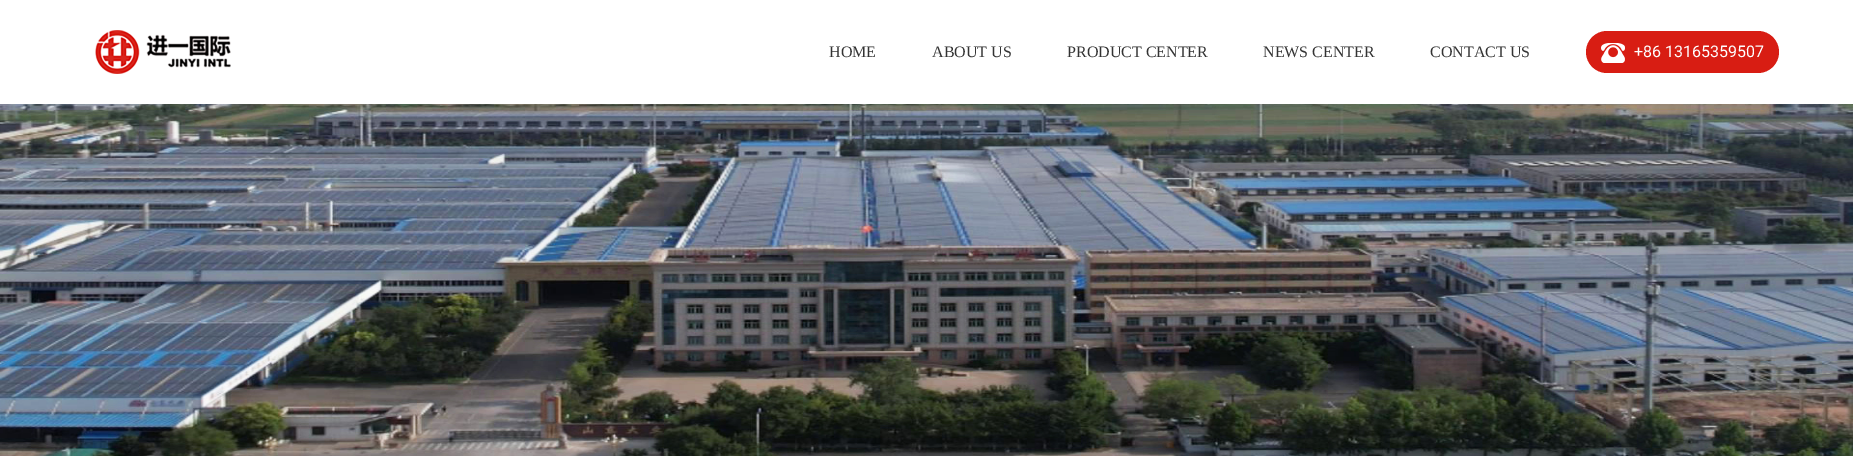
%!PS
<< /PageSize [1853 457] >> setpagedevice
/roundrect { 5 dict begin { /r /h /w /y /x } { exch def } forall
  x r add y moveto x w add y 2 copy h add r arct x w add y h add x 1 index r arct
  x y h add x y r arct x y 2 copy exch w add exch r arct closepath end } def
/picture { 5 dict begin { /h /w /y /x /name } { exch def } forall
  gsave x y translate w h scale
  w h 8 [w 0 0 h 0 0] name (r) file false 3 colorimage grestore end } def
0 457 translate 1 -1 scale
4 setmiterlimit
1 setgray
0 0 1853 457 rectfill
(img1.rgb) 95 30 136 44 picture
/LiberationSerif-Regular [16 0 0 -16 0 0] selectfont
0.2 setgray
829 57 moveto (HOME) show
932 57 moveto (ABOUT US) show
1067 57 moveto (PRODUCT CENTER) show
1263 57 moveto (NEWS CENTER) show
1430 57 moveto (CONTACT US) show
0.847 0.114 0.075 setrgbcolor
1586 31 193 42 21 roundrect fill
(img2.rgb) 1601 43 24 20 picture
/Roboto-Regular [16 0 0 -16 0 0] selectfont
1 setgray
1634 57 moveto (+86 13165359507) show
(img3.rgb) 0 104 1853 352 picture
showpage
